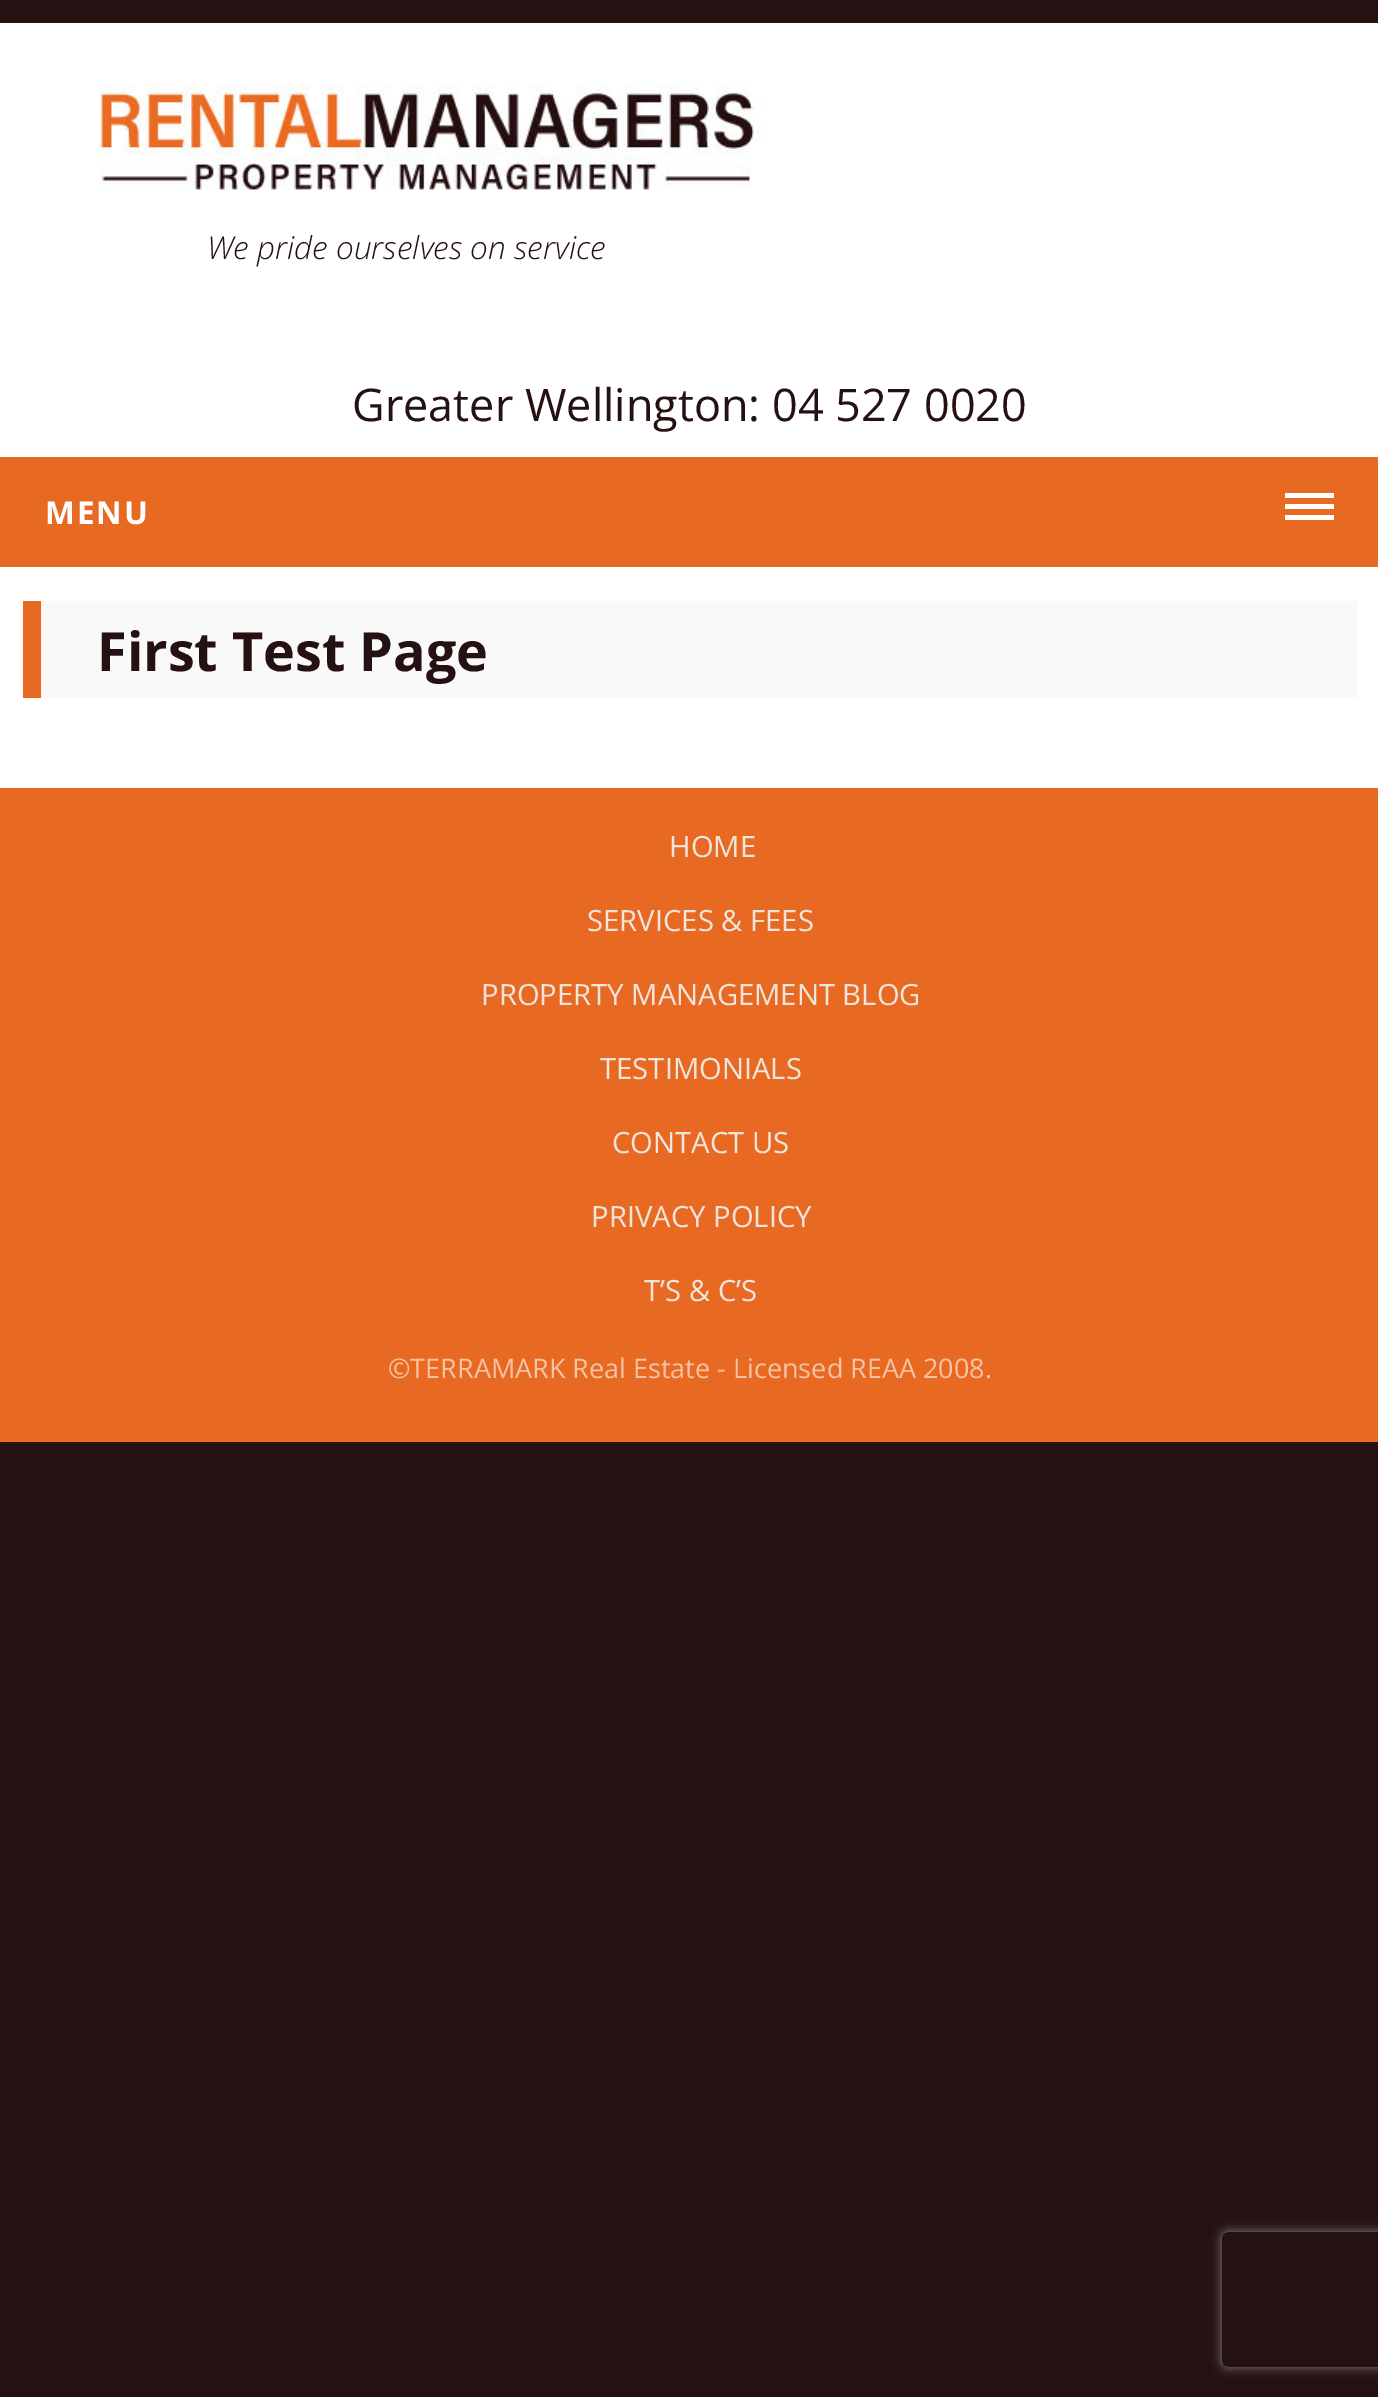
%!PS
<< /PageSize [1378 2397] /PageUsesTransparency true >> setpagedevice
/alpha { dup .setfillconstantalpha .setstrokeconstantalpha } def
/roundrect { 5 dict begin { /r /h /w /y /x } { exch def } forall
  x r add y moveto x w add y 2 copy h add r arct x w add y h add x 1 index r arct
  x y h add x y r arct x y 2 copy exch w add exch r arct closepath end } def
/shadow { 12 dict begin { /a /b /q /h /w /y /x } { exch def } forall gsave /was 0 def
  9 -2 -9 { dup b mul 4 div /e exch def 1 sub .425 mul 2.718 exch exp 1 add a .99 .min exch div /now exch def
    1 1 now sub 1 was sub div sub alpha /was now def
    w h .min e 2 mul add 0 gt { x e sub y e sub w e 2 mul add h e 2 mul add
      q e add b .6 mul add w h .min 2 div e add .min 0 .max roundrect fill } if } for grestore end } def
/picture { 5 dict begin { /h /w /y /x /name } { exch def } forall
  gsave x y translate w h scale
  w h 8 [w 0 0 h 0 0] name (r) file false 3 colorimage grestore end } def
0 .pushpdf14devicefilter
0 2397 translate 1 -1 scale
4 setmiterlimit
0.145 0.067 0.071 setrgbcolor
0 0 1378 2397 rectfill
1 setgray
0 23 1378 765 rectfill
(img1.rgb) 99 84 663 106 picture
/OpenSans-LightItalic [31.5 0 0 -31.5 0 0] selectfont
0.145 0.067 0.071 setrgbcolor
207 259 moveto (We pride ourselves on service) show
/OpenSans-Regular [45 0 0 -45 0 0] selectfont
352 421 moveto (Greater Wellington: 04 527 0020) show
0.91 0.416 0.133 setrgbcolor
0 457 1378 110 rectfill
/OpenSans-Bold [31.5 0 0 -31.5 0 0] selectfont
1 setgray
45 524 moveto 2 0 (MENU) ashow
1285 493 49 5 rectfill
1285 504 49 5 rectfill
1285 515 49 5 rectfill
0.976 setgray
41 601 1316 97 rectfill
0.91 0.416 0.133 setrgbcolor
23 601 18 97 rectfill
/OpenSans-Bold [54 0 0 -54 0 0] selectfont
0.145 0.067 0.071 setrgbcolor
97 671 moveto (First Test Page) show
0.91 0.416 0.133 setrgbcolor
0 788 1378 654 rectfill
/OpenSans-Regular [29.25 0 0 -29.25 0 0] selectfont
0.949 0.898 0.871 setrgbcolor
669 857 moveto (HOME) show
587 931 moveto (SERVICES & FEES) show
481 1005 moveto (PROPERTY MANAGEMENT BLOG) show
600 1079 moveto (TESTIMONIALS) show
612 1153 moveto (CONTACT US) show
591 1227 moveto (PRIVACY POLICY) show
644 1301 moveto (T’S & C’S) show
/OpenSans-Regular [27 0 0 -27 0 0] selectfont
0.965 0.765 0.655 setrgbcolor
388 1378 moveto (©TERRAMARK Real Estate - Licensed REAA 2008.) show
gsave
newpath 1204 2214 moveto 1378 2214 lineto 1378 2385 lineto 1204 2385 lineto closepath 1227 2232 moveto 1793 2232 lineto 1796 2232 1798 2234 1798 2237 curveto 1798 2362 lineto 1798 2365 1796 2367 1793 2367 curveto 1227 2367 lineto 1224 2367 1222 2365 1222 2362 curveto 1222 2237 lineto 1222 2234 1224 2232 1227 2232 curveto closepath eoclip newpath
0.502 setgray
1222 2232 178 135 5 5.5 1 shadow
grestore
.poppdf14devicefilter showpage
